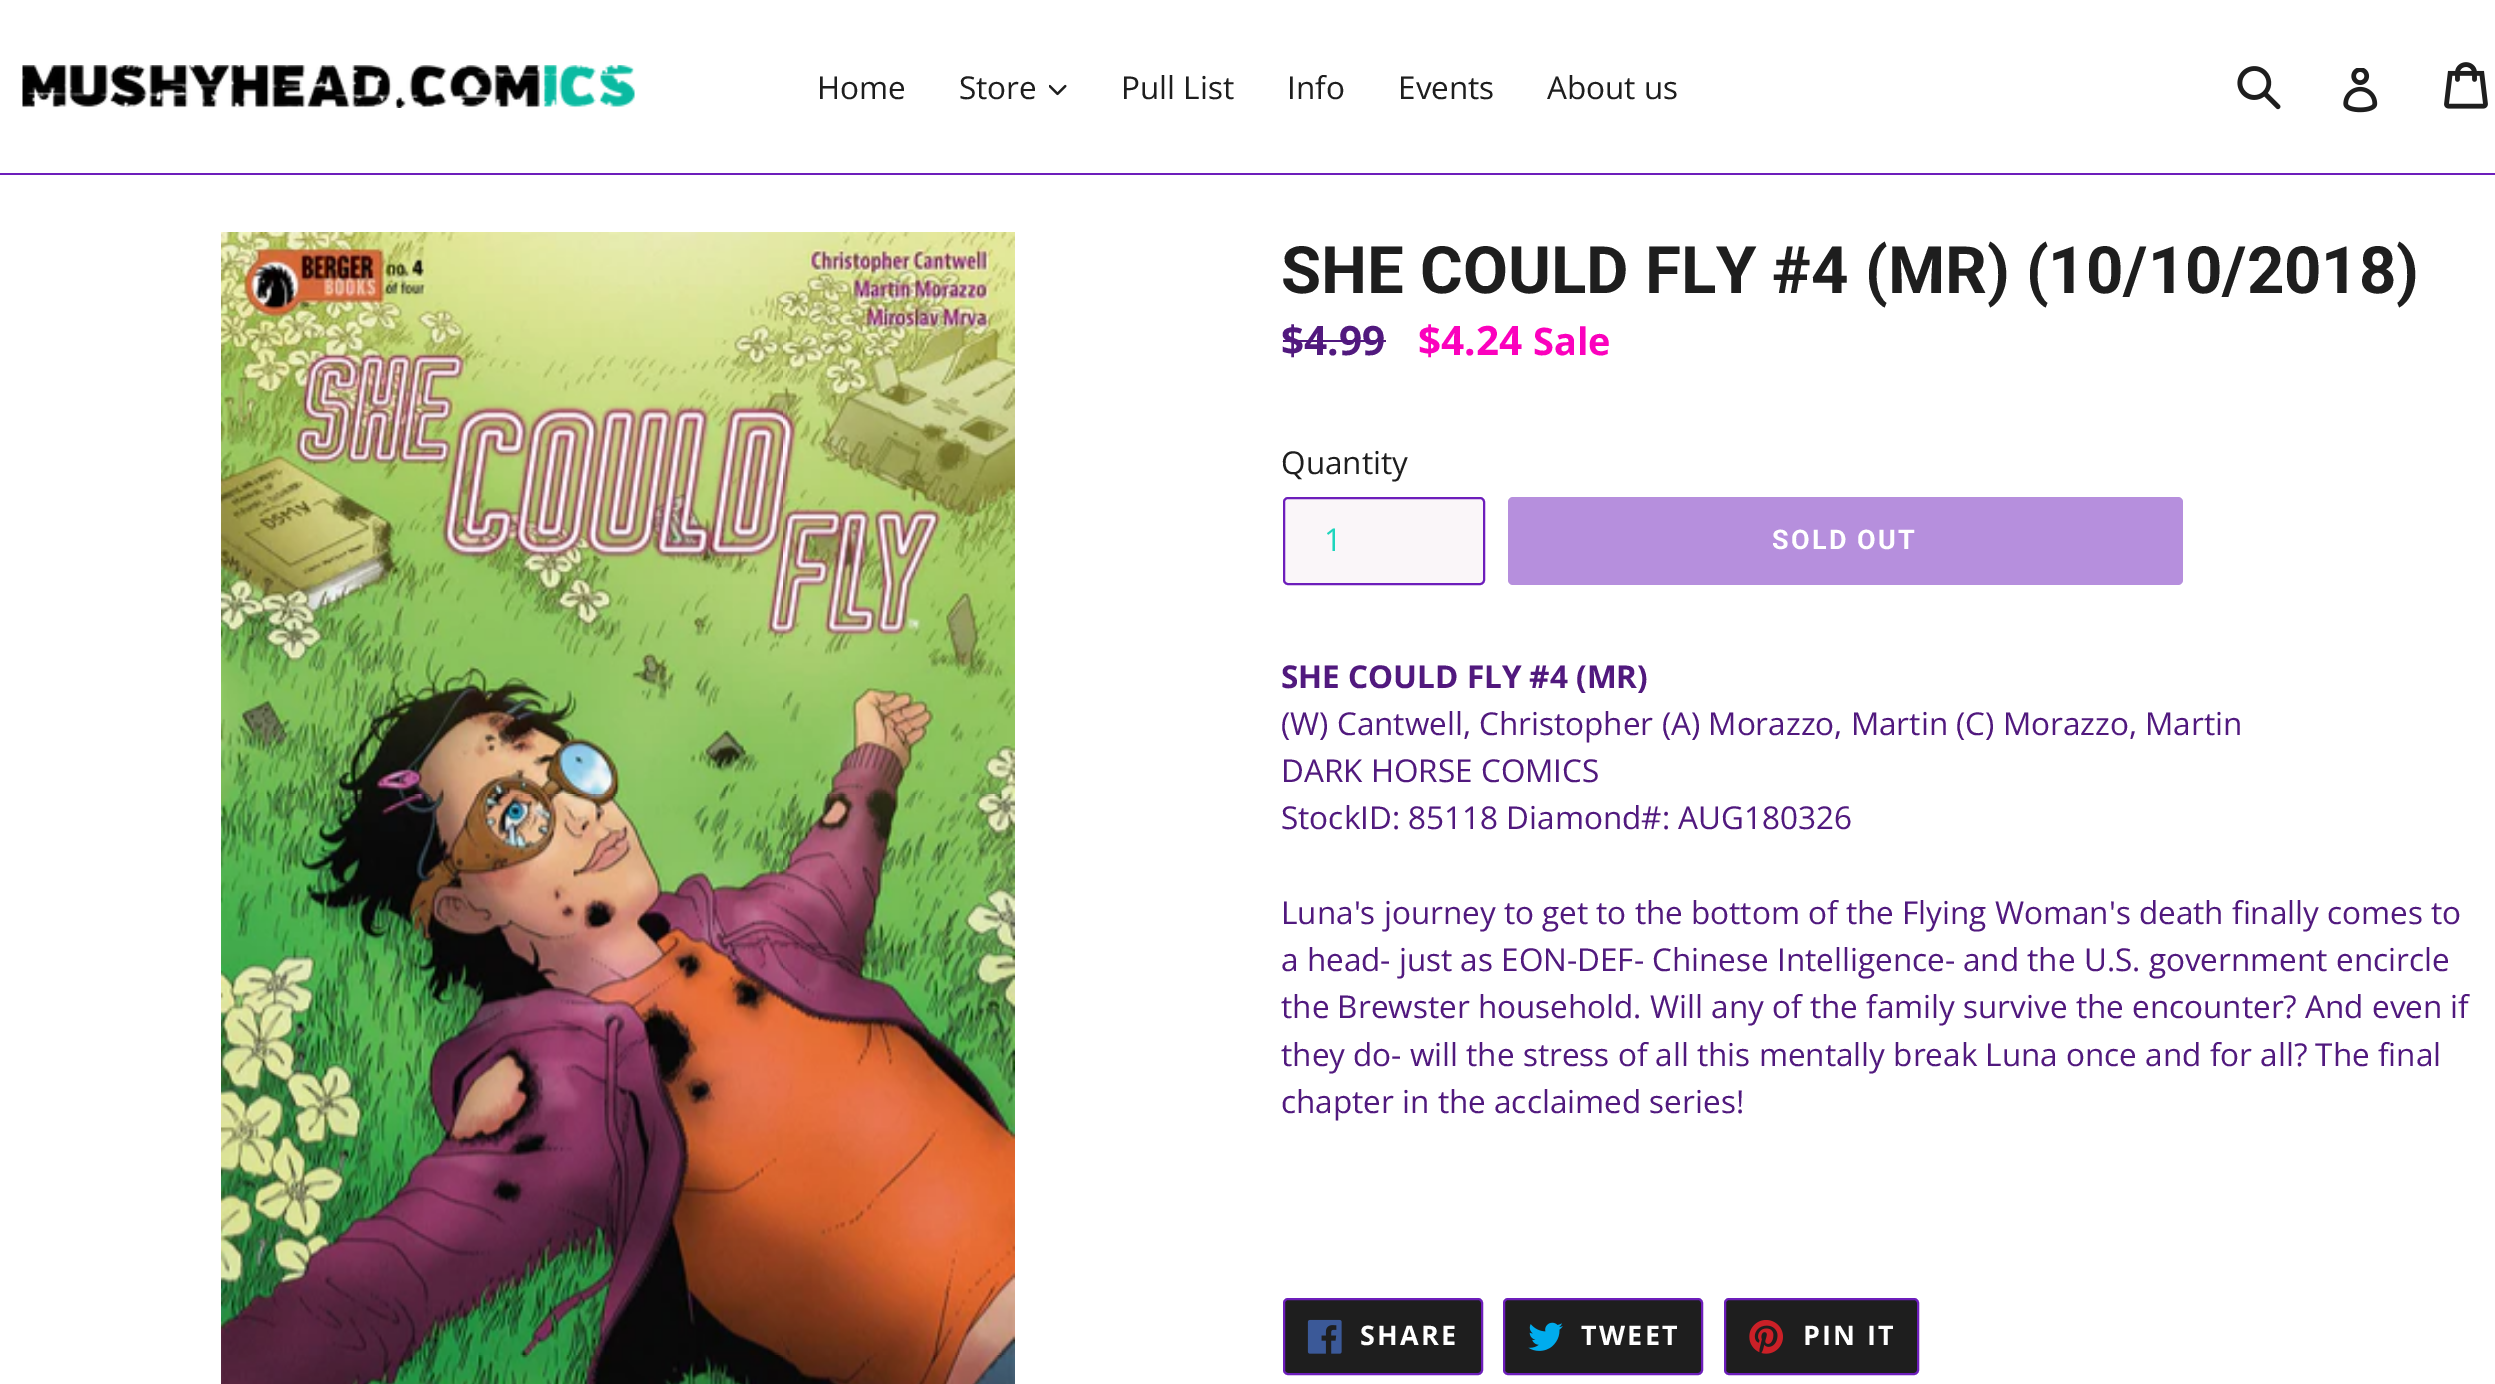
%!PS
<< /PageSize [2495 1384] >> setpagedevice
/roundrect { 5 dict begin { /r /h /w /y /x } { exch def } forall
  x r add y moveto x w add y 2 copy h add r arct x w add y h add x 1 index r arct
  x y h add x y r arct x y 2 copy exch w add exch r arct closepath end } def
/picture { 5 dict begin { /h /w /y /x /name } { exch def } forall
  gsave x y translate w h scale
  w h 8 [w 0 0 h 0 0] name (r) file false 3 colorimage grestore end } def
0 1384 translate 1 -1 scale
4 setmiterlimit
1 setgray
0 0 2495 1384 rectfill
0.427 0.118 0.733 setrgbcolor
0 173 2495 2 rectfill
(img1.rgb) 22 65 613 43 picture
/OpenSans-Regular [31.5 0 0 -31.5 0 0] selectfont
0.118 setgray
817 99 moveto (Home) show
959 99 moveto (Store) show
(img2.rgb) 1049 84 18 12 picture
1121 99 moveto (Pull List) show
1287 99 moveto (Info) show
1398 99 moveto (Events) show
1547 99 moveto (About us) show
(img3.rgb) 2237 66 44 44 picture
(img4.rgb) 2343 68 35 45 picture
(img5.rgb) 2444 62 44 47 picture
(img6.rgb) 221 232 794 1152 picture
/Roboto-Bold [65.25 0 0 -65.25 0 0] selectfont
1281 293 moveto (SHE COULD FLY #4 \(MR\) \(10/10/2018\)) show
/OpenSans-Bold [40.5 0 0 -40.5 0 0] selectfont
0.318 0.098 0.494 setrgbcolor
1281 355 moveto ($4.99) show
1283 340 103 2 rectfill
0.984 0.004 0.741 setrgbcolor
1418 355 moveto ($4.24) show
/OpenSans-Bold [38 0 0 -38 0 0] selectfont
1533 355 moveto (Sale) show
/OpenSans-Regular [31.5 0 0 -31.5 0 0] selectfont
0.118 setgray
1281 474 moveto (Quantity) show
0.98 0.965 0.976 setrgbcolor
1284 498 200 86 4 roundrect gsave fill grestore
0.427 0.118 0.733 setrgbcolor
2 setlinewidth
stroke
0.114 0.835 0.741 setrgbcolor
1324 551 moveto (1) show
0.714 0.561 0.867 setrgbcolor
1508 497 675 88 5 roundrect fill
/Roboto-Bold [27 0 0 -27 0 0] selectfont
1 setgray
1772 549 moveto 2.25 0 (SOLD OUT) ashow
/OpenSans-Bold [31.5 0 0 -31.5 0 0] selectfont
0.318 0.098 0.494 setrgbcolor
1281 688 moveto (SHE COULD FLY #4 \(MR\)) show
/OpenSans-Regular [31.5 0 0 -31.5 0 0] selectfont
1281 735 moveto (\(W\) Cantwell, Christopher \(A\) Morazzo, Martin \(C\) Morazzo, Martin) show
1281 782 moveto (DARK HORSE COMICS) show
1281 829 moveto (StockID: 85118 Diamond#: AUG180326) show
1281 924 moveto (Luna's journey to get to the bottom of the Flying Woman's death finally comes to) show
1281 971 moveto (a head- just as EON-DEF- Chinese Intelligence- and the U.S. government encircle) show
1281 1018 moveto (the Brewster household. Will any of the family survive the encounter? And even if) show
1281 1066 moveto (they do- will the stress of all this mentally break Luna once and for all? The final) show
1281 1113 moveto (chapter in the acclaimed series!) show
0.118 setgray
1284 1299 198 75 4 roundrect gsave fill grestore
0.427 0.118 0.733 setrgbcolor
stroke
(img7.rgb) 1307 1319 35 35 picture
/OpenSans-Bold [27 0 0 -27 0 0] selectfont
1 setgray
1360 1345 moveto 2.25 0 (SHARE) ashow
0.118 setgray
1504 1299 198 75 4 roundrect gsave fill grestore
0.427 0.118 0.733 setrgbcolor
stroke
(img8.rgb) 1528 1322 35 29 picture
1 setgray
1581 1345 moveto 2.25 0 (TWEET) ashow
0.118 setgray
1725 1299 193 75 4 roundrect gsave fill grestore
0.427 0.118 0.733 setrgbcolor
stroke
(img9.rgb) 1749 1320 34 34 picture
1 setgray
1803 1345 moveto 2.25 0 (PIN IT) ashow
showpage
